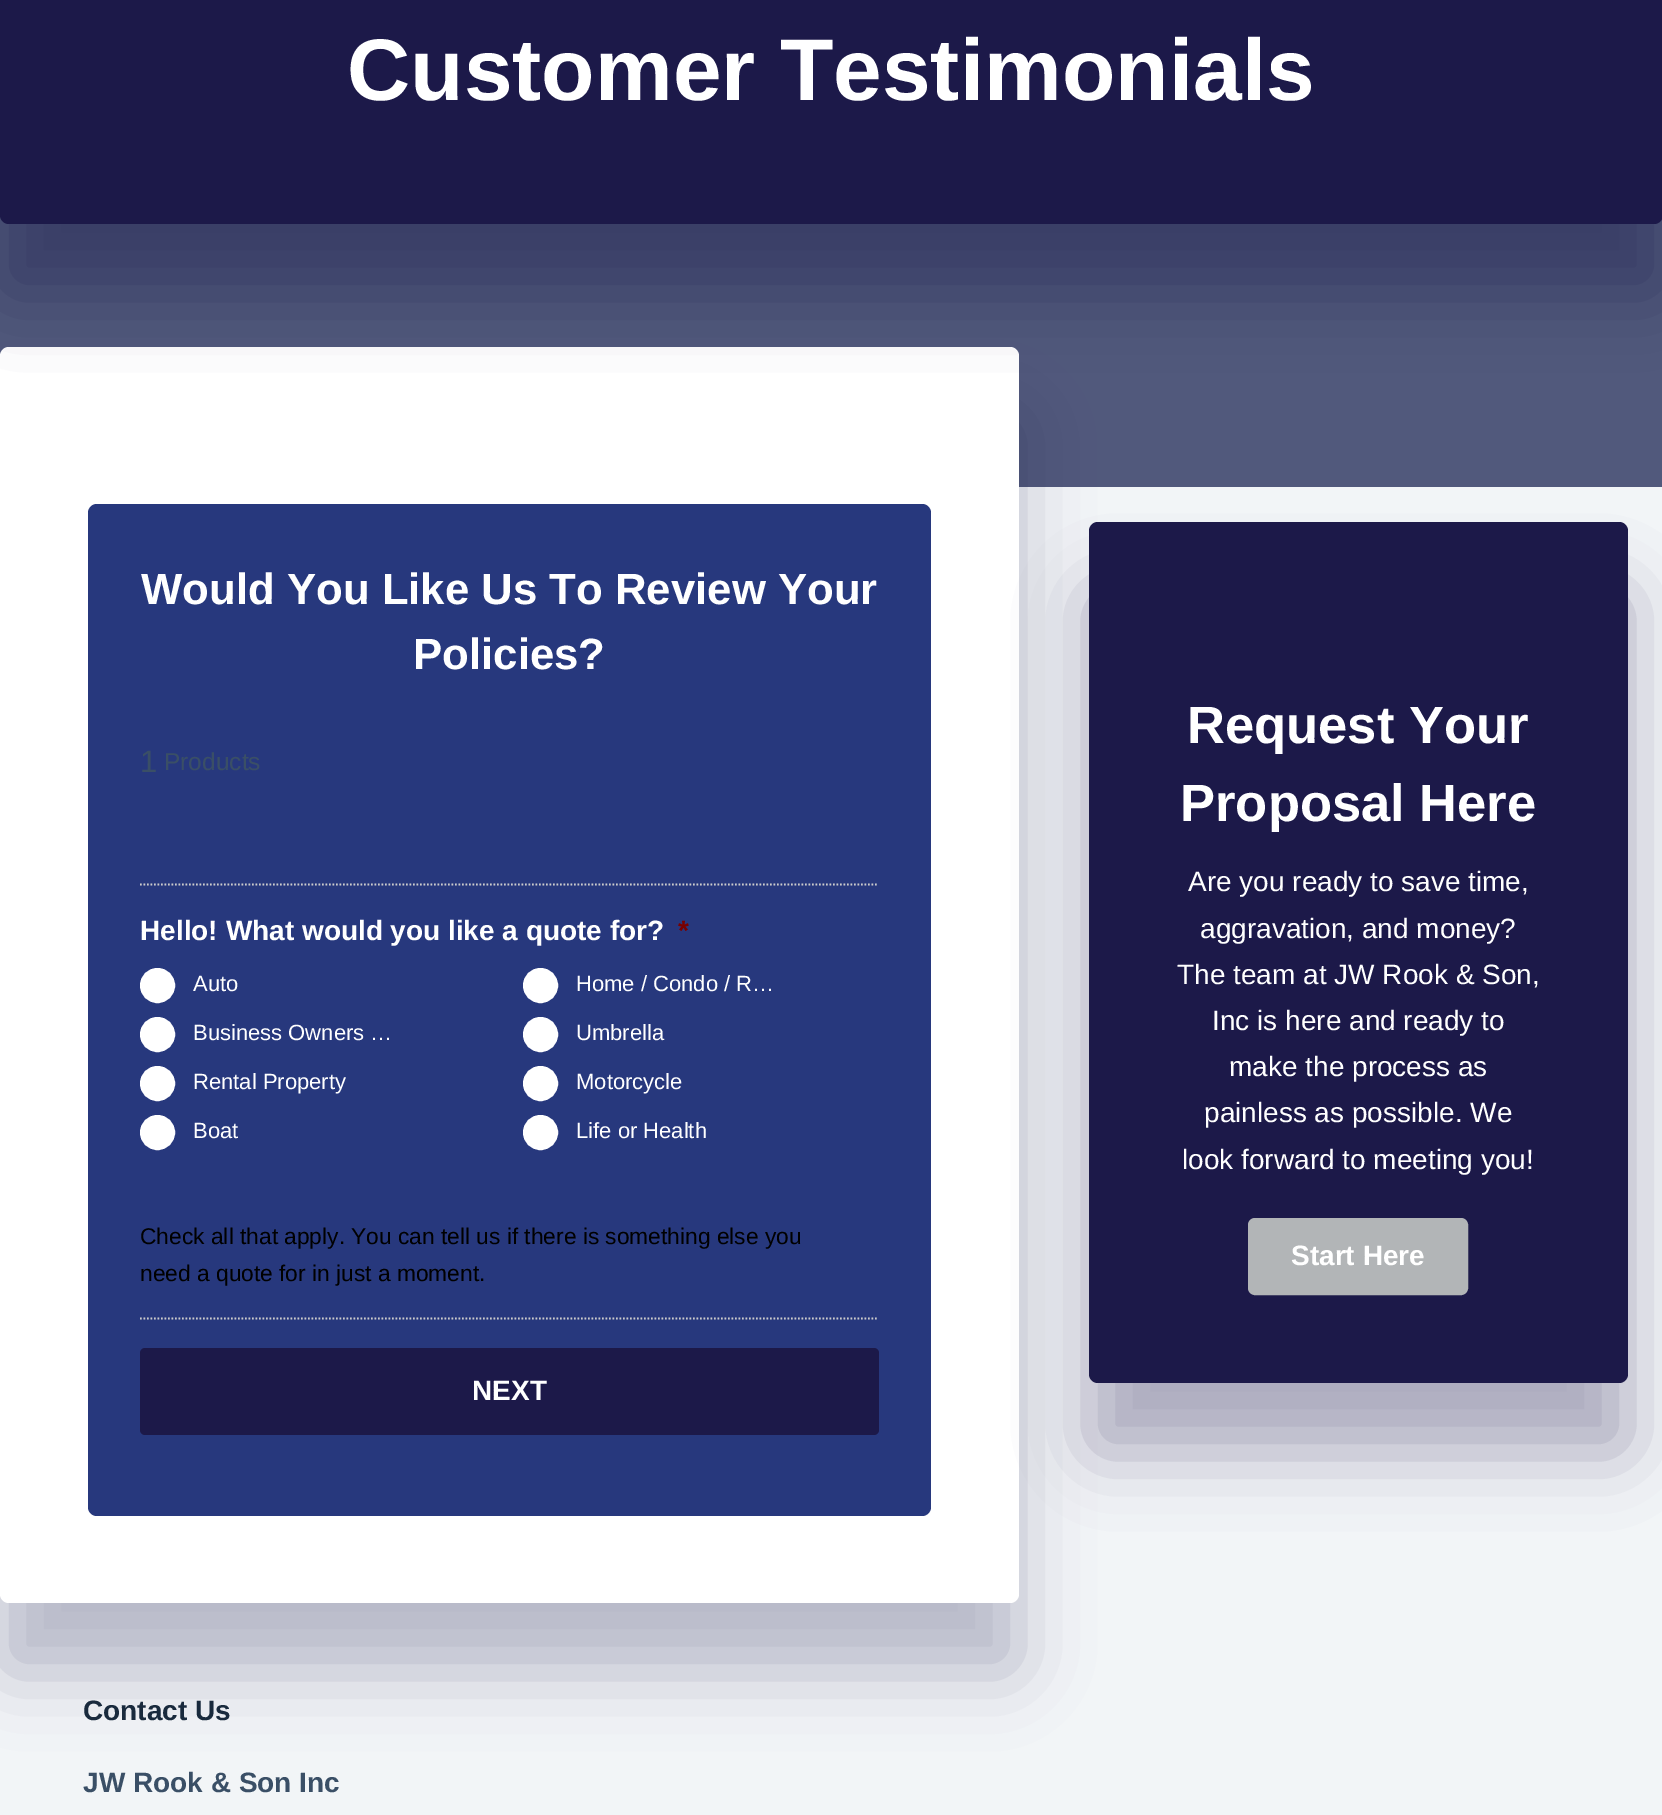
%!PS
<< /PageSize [1662 1815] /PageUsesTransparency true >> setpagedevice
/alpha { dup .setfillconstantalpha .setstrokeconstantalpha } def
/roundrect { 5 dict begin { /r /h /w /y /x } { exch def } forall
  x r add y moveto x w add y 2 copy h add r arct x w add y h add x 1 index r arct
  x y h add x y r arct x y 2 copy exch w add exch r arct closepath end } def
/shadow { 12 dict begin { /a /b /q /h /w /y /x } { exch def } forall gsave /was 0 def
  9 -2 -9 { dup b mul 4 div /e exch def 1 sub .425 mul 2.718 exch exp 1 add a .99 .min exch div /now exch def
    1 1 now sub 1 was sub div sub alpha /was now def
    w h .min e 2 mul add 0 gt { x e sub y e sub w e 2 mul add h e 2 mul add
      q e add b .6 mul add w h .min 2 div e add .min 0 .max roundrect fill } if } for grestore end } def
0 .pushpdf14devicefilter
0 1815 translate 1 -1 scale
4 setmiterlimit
0.949 0.961 0.969 setrgbcolor
0 0 1662 1815 rectfill
0.318 0.349 0.486 setrgbcolor
0 215 1662 272 rectfill
0.11 0.098 0.286 setrgbcolor
0 417 1019 1256 9 35 0.27 shadow
1 setgray
0 347 1019 1256 9 roundrect fill
0.11 0.098 0.286 setrgbcolor
0 -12 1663 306 9 35 0.43 shadow
0 -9 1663 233 9 roundrect fill
/LiberationSans-Bold [87.5 0 0 -87.5 0 0] selectfont
1 setgray
347 100 moveto (Customer Testimonials) show
0.153 0.22 0.49 setrgbcolor
88 504 843 1012 9 roundrect fill
/LiberationSans-Bold [43.75 0 0 -43.75 0 0] selectfont
1 setgray
141 604 moveto (Would You Like Us To Review Your) show
413 669 moveto (Policies?) show
0.8 setgray
1.8 setlinewidth
[1.75 1.75] 0 setdash
newpath 140 884.5 moveto 878.5 884.5 lineto stroke
/LiberationSans-Regular [31 0 0 -31 0 0] selectfont
0.227 0.31 0.4 setrgbcolor
140 772 moveto (1) show
/LiberationSans-Regular [24.5 0 0 -24.5 0 0] selectfont
164 770 moveto (Products) show
/LiberationSans-Bold [28 0 0 -28 0 0] selectfont
1 setgray
140 940 moveto (Hello! What would you like a quote for?) show
0.475 0 0 setrgbcolor
678 940 moveto (*) show
1 setgray
newpath 157.5 985.5 15 0 360 arc closepath gsave fill grestore
5 setlinewidth
[] 0 setdash
stroke
/LiberationSans-Regular [22 0 0 -22 0 0] selectfont
193 991 moveto (Auto) show
newpath 540.5 985.5 15 0 360 arc closepath gsave fill grestore
stroke
576 991 moveto (Home / Condo / R…) show
newpath 157.5 1034.5 15 0 360 arc closepath gsave fill grestore
stroke
193 1040 moveto (Business Owners …) show
newpath 540.5 1034.5 15 0 360 arc closepath gsave fill grestore
stroke
576 1040 moveto (Umbrella) show
newpath 157.5 1083.5 15 0 360 arc closepath gsave fill grestore
stroke
193 1089 moveto (Rental Property) show
newpath 540.5 1083.5 15 0 360 arc closepath gsave fill grestore
stroke
576 1089 moveto (Motorcycle) show
newpath 157.5 1132.5 15 0 360 arc closepath gsave fill grestore
stroke
193 1138 moveto (Boat) show
newpath 540.5 1132.5 15 0 360 arc closepath gsave fill grestore
stroke
576 1138 moveto (Life or Health) show
/LiberationSans-Regular [22.75 0 0 -22.75 0 0] selectfont
0 setgray
140 1244 moveto (Check all that apply. You can tell us if there is something else you) show
140 1281 moveto (need a quote for in just a moment.) show
0.8 setgray
1.8 setlinewidth
[1.75 1.75] 0 setdash
newpath 140 1318.5 moveto 878.5 1318.5 lineto stroke
0.11 0.098 0.286 setrgbcolor
140 1348 739 87 5 roundrect fill
/LiberationSans-Bold [28 0 0 -28 0 0] selectfont
1 setgray
472 1400 moveto (NEXT) show
0.11 0.098 0.286 setrgbcolor
1089 592 539 861 9 35 0.33 shadow
1089 522 539 861 9 roundrect fill
/LiberationSans-Bold [52.5 0 0 -52.5 0 0] selectfont
1 setgray
1187 743 moveto (Request Your) show
1180 821 moveto (Proposal Here) show
/LiberationSans-Regular [28 0 0 -28 0 0] selectfont
1188 891 moveto (Are you ready to save time,) show
1200 938 moveto (aggravation, and money?) show
1177 984 moveto (The team at JW Rook & Son,) show
1212 1030 moveto (Inc is here and ready to) show
1229 1076 moveto (make the process as) show
1204 1122 moveto (painless as possible. We) show
1182 1169 moveto (look forward to meeting you!) show
0.698 0.71 0.718 setrgbcolor
1249 1219 218 75 6 roundrect gsave fill grestore
2 setlinewidth
[] 0 setdash
stroke
/LiberationSans-Bold [28 0 0 -28 0 0] selectfont
1 setgray
1291 1265 moveto (Start Here) show
0.098 0.165 0.239 setrgbcolor
83 1720 moveto (Contact Us) show
0.227 0.31 0.4 setrgbcolor
83 1792 moveto (JW Rook & Son Inc) show
.poppdf14devicefilter showpage
